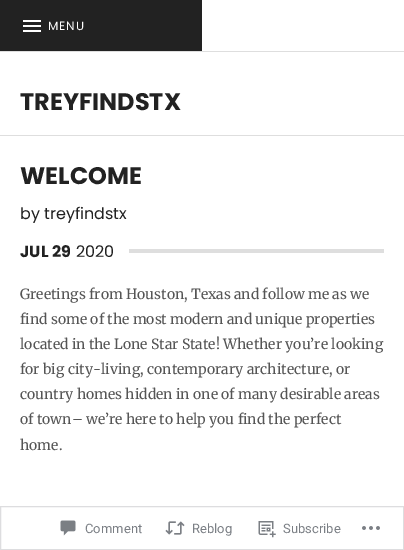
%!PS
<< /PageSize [404 550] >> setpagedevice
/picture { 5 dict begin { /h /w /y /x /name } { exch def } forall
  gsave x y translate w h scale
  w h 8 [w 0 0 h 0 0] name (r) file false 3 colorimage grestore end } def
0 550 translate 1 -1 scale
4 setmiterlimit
1 setgray
0 0 404 550 rectfill
0.871 setgray
0 51 404 1 rectfill
0.133 setgray
0 0 202 51 rectfill
(img1.rgb) 23 20 18 12 picture
/Poppins-Regular [12 0 0 -12 0 0] selectfont
1 setgray
48 30 moveto 1 0 (MENU) ashow
0.871 setgray
0 135 404 1 rectfill
/Poppins-Bold [24 0 0 -24 0 0] selectfont
0.133 setgray
20 110 moveto (TREYFINDSTX) show
0.871 setgray
129 249 255 4 rectfill
0.133 setgray
20 184 moveto (WELCOME) show
/Poppins-Regular [16 0 0 -16 0 0] selectfont
20 219 moveto (by treyfindstx) show
/Poppins-Bold [16 0 0 -16 0 0] selectfont
20 257 moveto (JUL) show
52 257 moveto (29) show
/Poppins-Regular [16 0 0 -16 0 0] selectfont
76 257 moveto (2020) show
/Merriweather-Regular [14 0 0 -14 0 0] selectfont
0.333 setgray
20 299 moveto (Greetings from Houston, Texas and follow me as we) show
20 324 moveto (find some of the most modern and unique properties) show
20 349 moveto (located in the Lone Star State! Whether you’re looking) show
20 374 moveto (for big city-living, contemporary architecture, or) show
20 399 moveto (country homes hidden in one of many desirable areas) show
20 424 moveto (of town– we’re here to help you find the perfect) show
20 450 moveto (home.) show
0.867 0.867 0.875 setrgbcolor
0.5 506.5 403 43 rectstroke
(img2.rgb) 60 520 16 16 picture
/Roboto-Regular [13 0 0 -13 0 0] selectfont
0.482 0.498 0.522 setrgbcolor
85 533 moveto (Comment) show
(img3.rgb) 165 521 20 14 picture
192 533 moveto (Reblog) show
(img4.rgb) 258 521 18 17 picture
283 533 moveto (Subscribe) show
(img5.rgb) 362 526 18 4 picture
showpage
